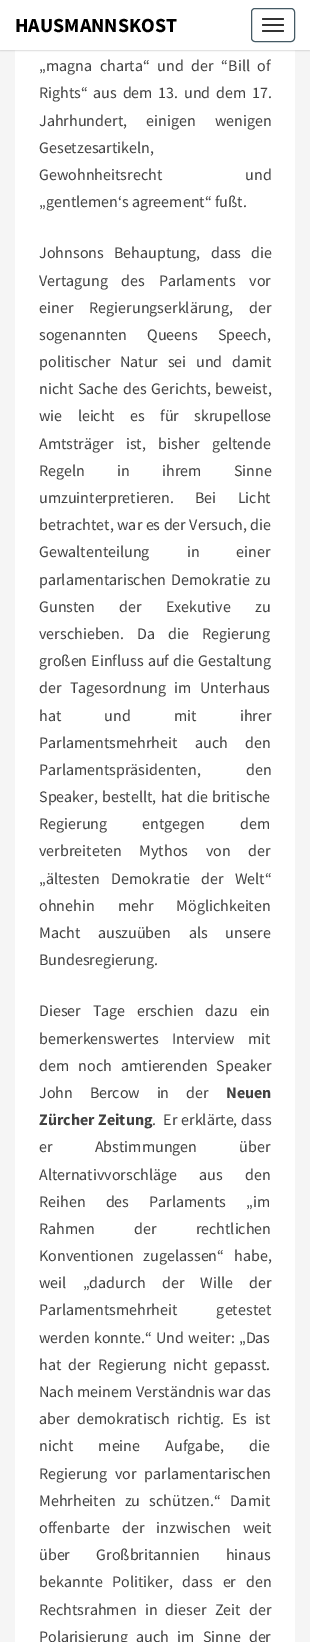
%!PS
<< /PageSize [310 1642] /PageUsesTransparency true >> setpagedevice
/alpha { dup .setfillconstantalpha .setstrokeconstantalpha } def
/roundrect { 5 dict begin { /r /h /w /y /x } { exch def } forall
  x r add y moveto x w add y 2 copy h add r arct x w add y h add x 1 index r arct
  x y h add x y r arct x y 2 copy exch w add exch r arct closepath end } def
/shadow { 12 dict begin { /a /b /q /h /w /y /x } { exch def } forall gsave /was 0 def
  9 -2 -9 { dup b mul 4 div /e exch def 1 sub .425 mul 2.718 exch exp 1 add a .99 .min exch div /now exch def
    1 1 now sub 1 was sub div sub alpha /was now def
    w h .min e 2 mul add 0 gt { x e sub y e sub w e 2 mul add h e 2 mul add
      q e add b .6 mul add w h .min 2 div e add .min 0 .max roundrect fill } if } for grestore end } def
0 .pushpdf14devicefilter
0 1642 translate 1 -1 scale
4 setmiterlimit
0.961 setgray
0 0 310 1642 rectfill
1 setgray
15 50 280 1592 rectfill
0.392 setgray
0 1 310 50 0 0.5 0.2 shadow
1 setgray
0 0 310 50 rectfill
/SourceSansPro-Bold [20 0 0 -20 0 0] selectfont
0 setgray
15 32 moveto (HAUSMANNSKOST) show
0.271 0.353 0.392 setrgbcolor
251.5 8.5 43 33 3.5 roundrect stroke
0.2 setgray
262 18 22 2 1 roundrect fill
262 24 22 2 1 roundrect fill
262 30 22 2 1 roundrect fill
/SourceSansPro-Regular [16 0 0 -16 0 0] selectfont
0.259 setgray
39 71 moveto 4.5 0 32 („magna charta“ und der “Bill of) widthshow
39 98 moveto 2.5 0 32 (Rights“ aus dem 13. und dem 17.) widthshow
39 126 moveto 16 0 32 (Jahrhundert, einigen wenigen) widthshow
39 153 moveto (Gesetzesartikeln,) show
39 180 moveto 80 0 32 (Gewohnheitsrecht und) widthshow
39 207 moveto („gentlemen‘s agreement“ fußt.) show
39 258 moveto 7 0 32 (Johnsons Behauptung, dass die) widthshow
39 286 moveto 10.5 0 32 (Vertagung des Parlaments vor) widthshow
39 313 moveto 13 0 32 (einer Regierungserklärung, der) widthshow
39 340 moveto 17 0 32 (sogenannten Queens Speech,) widthshow
39 367 moveto 6.5 0 32 (politischer Natur sei und damit) widthshow
39 394 moveto 1.5 0 32 (nicht Sache des Gerichts, beweist,) widthshow
39 421 moveto 12 0 32 (wie leicht es für skrupellose) widthshow
39 449 moveto 9 0 32 (Amtsträger ist, bisher geltende) widthshow
39 476 moveto 29 0 32 (Regeln in ihrem Sinne) widthshow
39 503 moveto 18 0 32 (umzuinterpretieren. Bei Licht) widthshow
39 530 moveto 0.25 0 32 (betrachtet, war es der Versuch, die) widthshow
39 557 moveto 34 0 32 (Gewaltenteilung in einer) widthshow
39 585 moveto 2 0 32 (parlamentarischen Demokratie zu) widthshow
39 612 moveto 21 0 32 (Gunsten der Exekutive zu) widthshow
39 639 moveto 10 0 32 (verschieben. Da die Regierung) widthshow
39 666 moveto 1 0 32 (großen Einfluss auf die Gestaltung) widthshow
39 693 moveto 5 0 32 (der Tagesordnung im Unterhaus) widthshow
39 721 moveto 40 0 32 (hat und mit ihrer) widthshow
39 748 moveto 14.5 0 32 (Parlamentsmehrheit auch den) widthshow
39 775 moveto 42 0 32 (Parlamentspräsidenten, den) widthshow
39 802 moveto 1 0 32 (Speaker, bestellt, hat die britische) widthshow
39 829 moveto 32 0 32 (Regierung entgegen dem) widthshow
39 856 moveto 14.5 0 32 (verbreiteten Mythos von der) widthshow
39 884 moveto 8 0 32 („ältesten Demokratie der Welt“) widthshow
39 911 moveto 20 0 32 (ohnehin mehr Möglichkeiten) widthshow
39 938 moveto 14.5 0 32 (Macht auszuüben als unsere) widthshow
39 965 moveto (Bundesregierung.) show
39 1016 moveto 8.5 0 32 (Dieser Tage erschien dazu ein) widthshow
39 1044 moveto 10 0 32 (bemerkenswertes Interview mit) widthshow
39 1071 moveto 6 0 32 (dem noch amtierenden Speaker) widthshow
39 1098 moveto 13.5 0 32 (John Bercow in der) widthshow
/SourceSansPro-Bold [16 0 0 -16 0 0] selectfont
226 1098 moveto (Neuen) show
39 1125 moveto 0.5 0 32 (Zürcher Zeitung) widthshow
/SourceSansPro-Regular [16 0 0 -16 0 0] selectfont
152 1125 moveto 0.5 0 32 (.  Er erklärte, dass) widthshow
39 1152 moveto 39 0 32 (er Abstimmungen über) widthshow
39 1180 moveto 19 0 32 (Alternativvorschläge aus den) widthshow
39 1207 moveto 17 0 32 (Reihen des Parlaments „im) widthshow
39 1234 moveto 36 0 32 (Rahmen der rechtlichen) widthshow
39 1261 moveto 7 0 32 (Konventionen zugelassen“ habe,) widthshow
39 1288 moveto 13 0 32 (weil „dadurch der Wille der) widthshow
39 1315 moveto 36 0 32 (Parlamentsmehrheit getestet) widthshow
39 1343 moveto 1 0 32 (werden konnte.“ Und weiter: „Das) widthshow
39 1370 moveto 4 0 32 (hat der Regierung nicht gepasst.) widthshow
39 1397 moveto 0.5 0 32 (Nach meinem Verständnis war das) widthshow
39 1424 moveto 4.5 0 32 (aber demokratisch richtig. Es ist) widthshow
39 1451 moveto 22 0 32 (nicht meine Aufgabe, die) widthshow
39 1479 moveto 4.5 0 32 (Regierung vor parlamentarischen) widthshow
39 1506 moveto 6 0 32 (Mehrheiten zu schützen.“ Damit) widthshow
39 1533 moveto 9 0 32 (offenbarte der inzwischen weit) widthshow
39 1560 moveto 23 0 32 (über Großbritannien hinaus) widthshow
39 1587 moveto 6.5 0 32 (bekannte Politiker, dass er den) widthshow
39 1615 moveto 5 0 32 (Rechtsrahmen in dieser Zeit der) widthshow
39 1642 moveto 5 0 32 (Polarisierung auch im Sinne der) widthshow
.poppdf14devicefilter showpage
